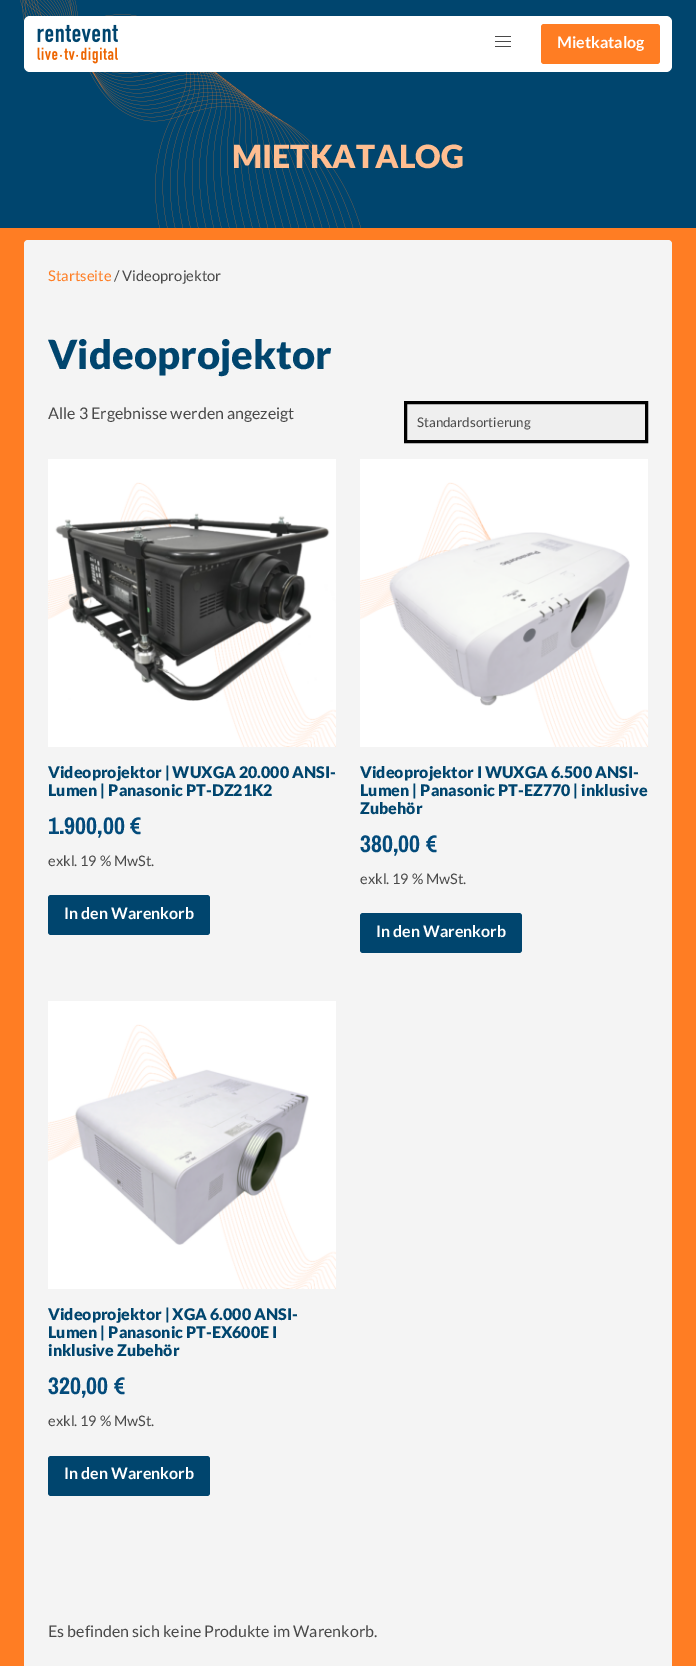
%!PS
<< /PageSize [696 1666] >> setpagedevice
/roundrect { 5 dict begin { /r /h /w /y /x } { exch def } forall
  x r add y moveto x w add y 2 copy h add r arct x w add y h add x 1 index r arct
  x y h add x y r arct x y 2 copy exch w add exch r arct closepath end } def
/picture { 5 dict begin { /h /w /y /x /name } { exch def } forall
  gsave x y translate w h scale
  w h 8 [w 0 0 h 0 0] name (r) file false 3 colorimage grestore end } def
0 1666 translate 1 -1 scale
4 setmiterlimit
0 0.271 0.431 setrgbcolor
0 0 696 1666 rectfill
(img2.rgb) 20 0 341 228 picture
1 setgray
24 16 648 56 6 roundrect fill
(img1.rgb) 37 24 81 40 picture
0.286 setgray
495 36 16 1 rectfill
495 41 16 1 rectfill
495 46 16 1 rectfill
1 0.49 0.137 setrgbcolor
541 24 119 40 3 roundrect fill
/Lato-Bold [16 0 0 -16 0 0] selectfont
1 setgray
557 48 moveto (Mietkatalog) show
/Lato-Black [32 0 0 -32 0 0] selectfont
1 0.745 0.569 setrgbcolor
232 168 moveto (MIETKATALOG) show
1 0.49 0.137 setrgbcolor
0 228 696 1438 rectfill
0.957 setgray
24 240 648 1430 4 roundrect fill
/Lato-Regular [14.75 0 0 -14.75 0 0] selectfont
1 0.49 0.137 setrgbcolor
48 281 moveto (Startseite) show
0.286 setgray
114 281 moveto (/ Videoprojektor) show
/Lato-Black [40 0 0 -40 0 0] selectfont
0 0.271 0.431 setrgbcolor
48 369 moveto (Videoprojektor) show
/Lato-Regular [16 0 0 -16 0 0] selectfont
0.286 setgray
48 419 moveto (Alle 3 Ergebnisse werden angezeigt) show
0.937 setgray
newpath 405.5 402.5 moveto 646.5 402.5 lineto 646.5 441.5 lineto 405.5 441.5 lineto closepath gsave fill grestore
0 setgray
3 setlinewidth
stroke
/Lato-Regular [13.25 0 0 -13.25 0 0] selectfont
0.286 setgray
417 427 moveto (Standardsortierung) show
(img3.rgb) 48 459 288 288 picture
/Lato-Black [16 0 0 -16 0 0] selectfont
0 0.271 0.431 setrgbcolor
48 778 moveto (Videoprojektor | WUXGA 20.000 ANSI-) show
48 796 moveto (Lumen | Panasonic PT-DZ21K2) show
/ArchivoNarrow-Bold [24 0 0 -24 0 0] selectfont
0.012 0.294 0.482 setrgbcolor
48 834 moveto (1.900,00 €) show
/Lato-Regular [14.5 0 0 -14.5 0 0] selectfont
0.286 setgray
48 866 moveto (exkl. 19 % MwSt.) show
0 0.271 0.431 setrgbcolor
48 895 162 40 3 roundrect fill
/Lato-Bold [16 0 0 -16 0 0] selectfont
1 setgray
64 919 moveto (In den Warenkorb) show
(img4.rgb) 360 459 288 288 picture
/Lato-Black [16 0 0 -16 0 0] selectfont
0 0.271 0.431 setrgbcolor
360 778 moveto (Videoprojektor I WUXGA 6.500 ANSI-) show
360 796 moveto (Lumen | Panasonic PT-EZ770 | inklusive) show
360 814 moveto (Zubehör) show
/ArchivoNarrow-Bold [24 0 0 -24 0 0] selectfont
0.012 0.294 0.482 setrgbcolor
360 852 moveto (380,00 €) show
/Lato-Regular [14.5 0 0 -14.5 0 0] selectfont
0.286 setgray
360 884 moveto (exkl. 19 % MwSt.) show
0 0.271 0.431 setrgbcolor
360 913 162 40 3 roundrect fill
/Lato-Bold [16 0 0 -16 0 0] selectfont
1 setgray
376 937 moveto (In den Warenkorb) show
(img5.rgb) 48 1001 288 288 picture
/Lato-Black [16 0 0 -16 0 0] selectfont
0 0.271 0.431 setrgbcolor
48 1320 moveto (Videoprojektor | XGA 6.000 ANSI-) show
48 1338 moveto (Lumen | Panasonic PT-EX600E I) show
48 1356 moveto (inklusive Zubehör) show
/ArchivoNarrow-Bold [24 0 0 -24 0 0] selectfont
0.012 0.294 0.482 setrgbcolor
48 1394 moveto (320,00 €) show
/Lato-Regular [14.5 0 0 -14.5 0 0] selectfont
0.286 setgray
48 1426 moveto (exkl. 19 % MwSt.) show
0 0.271 0.431 setrgbcolor
48 1456 162 40 3 roundrect fill
/Lato-Bold [16 0 0 -16 0 0] selectfont
1 setgray
64 1479 moveto (In den Warenkorb) show
/Lato-Regular [16 0 0 -16 0 0] selectfont
0.286 setgray
48 1637 moveto (Es befinden sich keine Produkte im Warenkorb.) show
showpage
